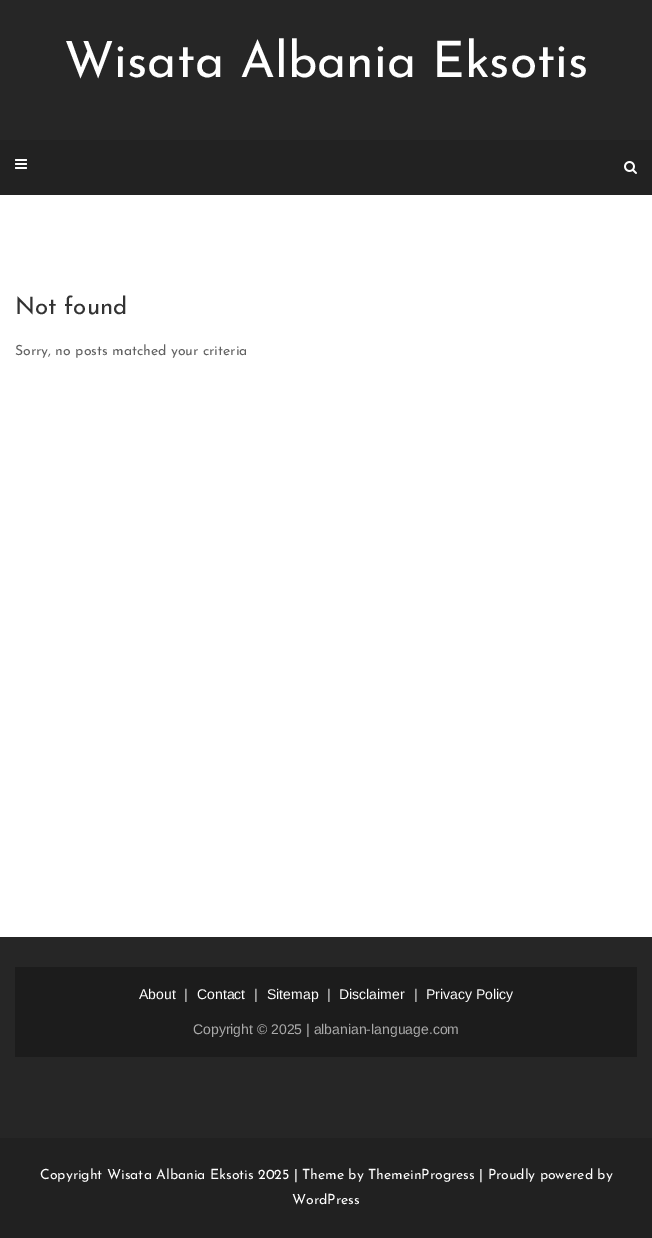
%!PS
<< /PageSize [652 1238] >> setpagedevice
/picture { 5 dict begin { /h /w /y /x /name } { exch def } forall
  gsave x y translate w h scale
  w h 8 [w 0 0 h 0 0] name (r) file false 3 colorimage grestore end } def
0 1238 translate 1 -1 scale
4 setmiterlimit
1 setgray
0 0 652 1238 rectfill
0.149 setgray
0 0 652 140 rectfill
/JosefinSans-Regular [50 0 0 -50 0 0] selectfont
1 setgray
64 77 moveto (Wisata Albania Eksotis) show
0.133 setgray
0 140 652 55 rectfill
(img1.rgb) 15 159 12 10 picture
(img2.rgb) 624 161 13 13 picture
/JosefinSans-Regular [24 0 0 -24 0 0] selectfont
0.2 setgray
15 314 moveto (Not found) show
/JosefinSans-Regular [14 0 0 -14 0 0] selectfont
0.38 setgray
15 355 moveto (Sorry, no posts matched your criteria) show
0.129 setgray
0 1138 652 100 rectfill
0.149 setgray
0 937 652 201 rectfill
0.11 setgray
15 967 622 90 rectfill
/LiberationSans-Regular [14 0 0 -14 0 0] selectfont
1 setgray
139 999 moveto (About) show
0.8 setgray
184 999 moveto (|) show
1 setgray
197 999 moveto (Contact) show
0.8 setgray
254 999 moveto (|) show
1 setgray
267 999 moveto (Sitemap) show
0.8 setgray
327 999 moveto (|) show
1 setgray
339 999 moveto (Disclaimer) show
0.8 setgray
414 999 moveto (|) show
1 setgray
426 999 moveto (Privacy Policy) show
0.667 setgray
193 1034 moveto (Copyright © 2025 | albanian-language.com) show
/JosefinSans-Regular [14 0 0 -14 0 0] selectfont
1 setgray
40 1179 moveto (Copyright Wisata Albania Eksotis 2025 | Theme by ThemeinProgress | Proudly powered by) show
292 1204 moveto (WordPress) show
showpage
